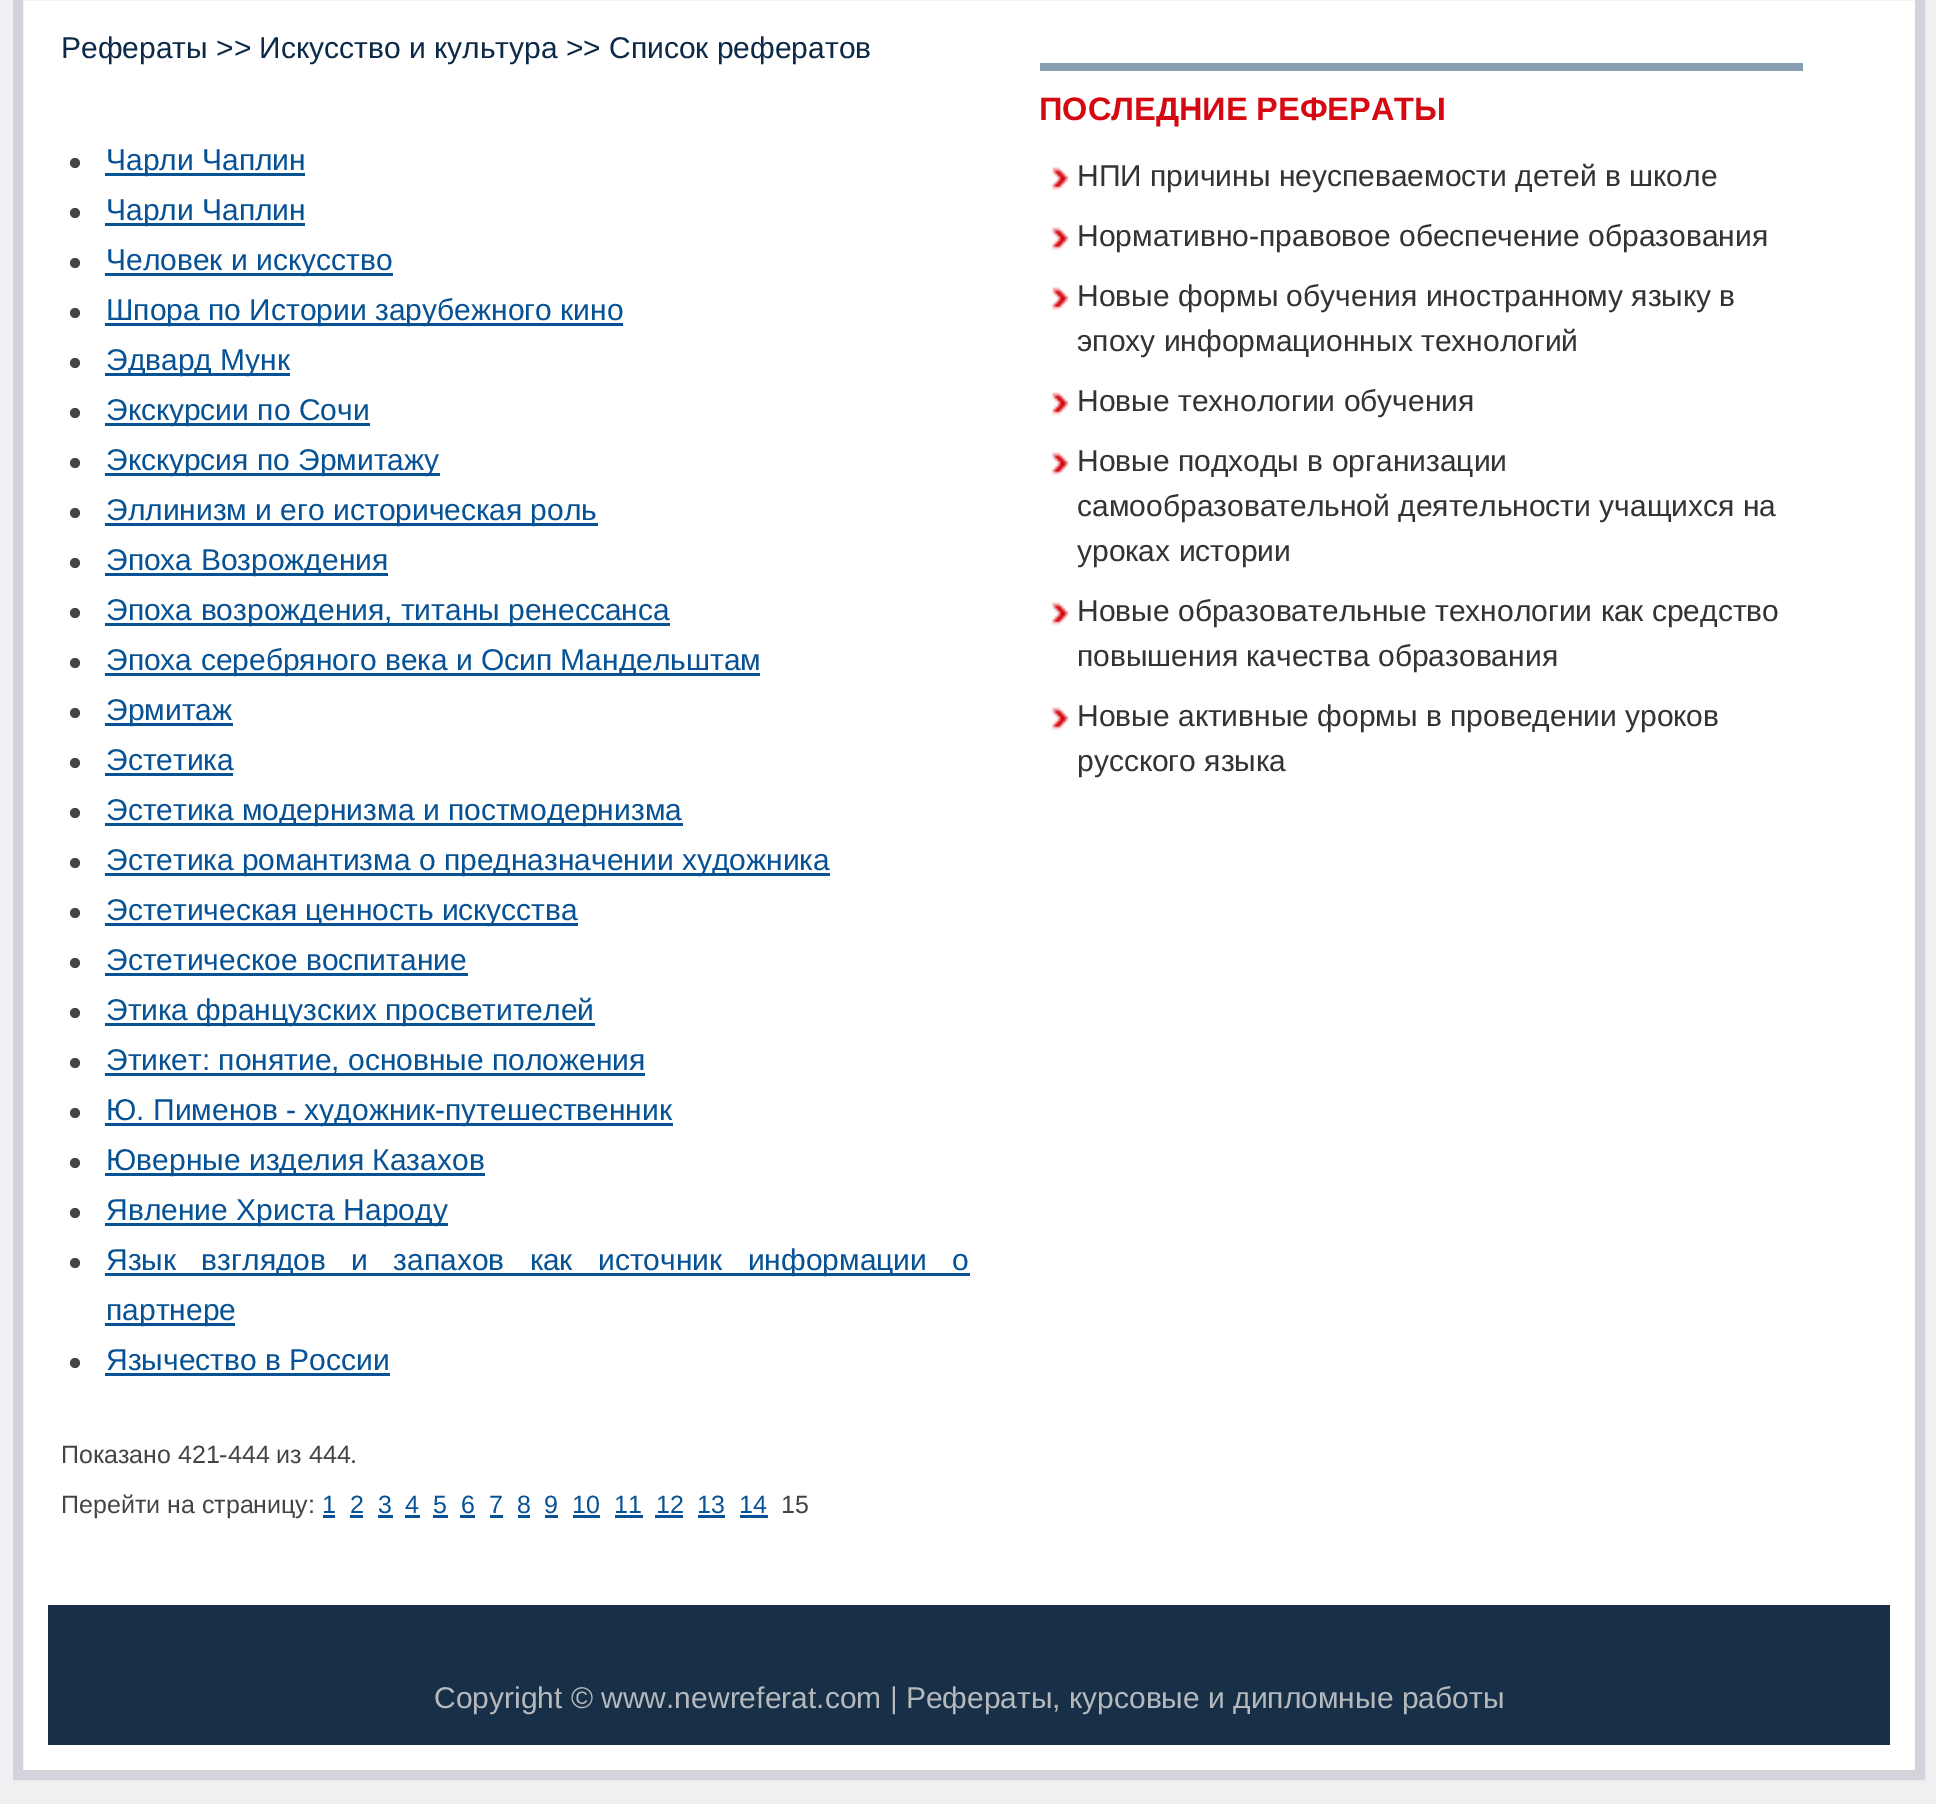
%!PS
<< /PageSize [1936 1804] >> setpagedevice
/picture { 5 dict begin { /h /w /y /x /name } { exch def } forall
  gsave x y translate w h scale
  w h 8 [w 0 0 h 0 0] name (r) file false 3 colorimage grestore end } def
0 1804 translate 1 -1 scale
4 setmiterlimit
0.941 0.941 0.949 setrgbcolor
0 0 1936 1804 rectfill
1 setgray
newpath 18 -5 moveto 1920 -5 lineto 1920 1775 lineto 18 1775 lineto closepath gsave fill grestore
0.827 0.827 0.859 setrgbcolor
10 setlinewidth
stroke
/LiberationSans-Regular [30 0 0 -30 0 0] selectfont
0.047 0.165 0.282 setrgbcolor
61 58 moveto (Рефераты >> Искусство и культура >> Список рефератов) show
0.267 setgray
newpath 75 163 5 0 360 arc closepath fill
0.027 0.318 0.584 setrgbcolor
105 173 200 3 rectfill
106 170 moveto (Чарли Чаплин) show
0.267 setgray
newpath 75 213 5 0 360 arc closepath fill
0.027 0.318 0.584 setrgbcolor
105 223 200 3 rectfill
106 220 moveto (Чарли Чаплин) show
0.267 setgray
newpath 75 263 5 0 360 arc closepath fill
0.027 0.318 0.584 setrgbcolor
105 273 288 3 rectfill
106 270 moveto (Человек и искусство) show
0.267 setgray
newpath 75 313 5 0 360 arc closepath fill
0.027 0.318 0.584 setrgbcolor
105 323 518 3 rectfill
106 320 moveto (Шпора по Истории зарубежного кино) show
0.267 setgray
newpath 75 363 5 0 360 arc closepath fill
0.027 0.318 0.584 setrgbcolor
105 373 185 3 rectfill
106 370 moveto (Эдвард Мунк) show
0.267 setgray
newpath 75 413 5 0 360 arc closepath fill
0.027 0.318 0.584 setrgbcolor
105 423 265 3 rectfill
106 420 moveto (Экскурсии по Сочи) show
0.267 setgray
newpath 75 463 5 0 360 arc closepath fill
0.027 0.318 0.584 setrgbcolor
105 473 335 3 rectfill
106 470 moveto (Экскурсия по Эрмитажу) show
0.267 setgray
newpath 75 513 5 0 360 arc closepath fill
0.027 0.318 0.584 setrgbcolor
105 523 493 3 rectfill
106 520 moveto (Эллинизм и его историческая роль) show
0.267 setgray
newpath 75 563 5 0 360 arc closepath fill
0.027 0.318 0.584 setrgbcolor
105 573 283 3 rectfill
106 570 moveto (Эпоха Возрождения) show
0.267 setgray
newpath 75 613 5 0 360 arc closepath fill
0.027 0.318 0.584 setrgbcolor
105 623 565 3 rectfill
106 620 moveto (Эпоха возрождения, титаны ренессанса) show
0.267 setgray
newpath 75 663 5 0 360 arc closepath fill
0.027 0.318 0.584 setrgbcolor
105 673 655 3 rectfill
106 670 moveto (Эпоха серебряного века и Осип Мандельштам) show
0.267 setgray
newpath 75 713 5 0 360 arc closepath fill
0.027 0.318 0.584 setrgbcolor
105 723 128 3 rectfill
106 720 moveto (Эрмитаж) show
0.267 setgray
newpath 75 763 5 0 360 arc closepath fill
0.027 0.318 0.584 setrgbcolor
106 770 moveto (Эстетика) show
105 773 128 3 rectfill
0.267 setgray
newpath 75 813 5 0 360 arc closepath fill
0.027 0.318 0.584 setrgbcolor
105 823 578 3 rectfill
106 820 moveto (Эстетика модернизма и постмодернизма) show
0.267 setgray
newpath 75 863 5 0 360 arc closepath fill
0.027 0.318 0.584 setrgbcolor
105 873 725 3 rectfill
106 870 moveto (Эстетика романтизма о предназначении художника) show
0.267 setgray
newpath 75 913 5 0 360 arc closepath fill
0.027 0.318 0.584 setrgbcolor
105 923 473 3 rectfill
106 920 moveto (Эстетическая ценность искусства) show
0.267 setgray
newpath 75 963 5 0 360 arc closepath fill
0.027 0.318 0.584 setrgbcolor
106 970 moveto (Эстетическое воспитание) show
105 973 363 3 rectfill
0.267 setgray
newpath 75 1013 5 0 360 arc closepath fill
0.027 0.318 0.584 setrgbcolor
105 1023 490 3 rectfill
106 1020 moveto (Этика французских просветителей) show
0.267 setgray
newpath 75 1063 5 0 360 arc closepath fill
0.027 0.318 0.584 setrgbcolor
105 1073 540 3 rectfill
106 1070 moveto (Этикет: понятие, основные положения) show
0.267 setgray
newpath 75 1113 5 0 360 arc closepath fill
0.027 0.318 0.584 setrgbcolor
105 1123 568 3 rectfill
106 1120 moveto (Ю. Пименов - художник-путешественник) show
0.267 setgray
newpath 75 1163 5 0 360 arc closepath fill
0.027 0.318 0.584 setrgbcolor
105 1173 380 3 rectfill
106 1170 moveto (Юверные изделия Казахов) show
0.267 setgray
newpath 75 1213 5 0 360 arc closepath fill
0.027 0.318 0.584 setrgbcolor
105 1223 343 3 rectfill
106 1220 moveto (Явление Христа Народу) show
0.267 setgray
newpath 75 1263 5 0 360 arc closepath fill
0.027 0.318 0.584 setrgbcolor
105 1273 865 3 rectfill
106 1270 moveto 17 0 32 (Язык взглядов и запахов как источник информации о) widthshow
105 1323 130 3 rectfill
106 1320 moveto (партнере) show
0.267 setgray
newpath 75 1363 5 0 360 arc closepath fill
0.027 0.318 0.584 setrgbcolor
106 1370 moveto (Язычество в России) show
105 1373 285 3 rectfill
/LiberationSans-Regular [25 0 0 -25 0 0] selectfont
0.267 setgray
61 1463 moveto (Показано 421-444 из 444.) show
61 1513 moveto (Перейти на страницу:) show
0.027 0.318 0.584 setrgbcolor
322 1513 moveto (1) show
323 1515 12 3 rectfill
350 1513 moveto (2) show
350 1515 13 3 rectfill
378 1513 moveto (3) show
378 1515 15 3 rectfill
405 1513 moveto (4) show
405 1515 15 3 rectfill
433 1513 moveto (5) show
433 1515 15 3 rectfill
461 1513 moveto (6) show
460 1515 15 3 rectfill
489 1513 moveto (7) show
490 1515 13 3 rectfill
517 1513 moveto (8) show
518 1515 12 3 rectfill
544 1513 moveto (9) show
545 1515 13 3 rectfill
572 1513 moveto (10) show
573 1515 27 3 rectfill
614 1513 moveto (11) show
615 1515 28 3 rectfill
656 1513 moveto (12) show
655 1515 28 3 rectfill
697 1513 moveto (13) show
698 1515 27 3 rectfill
739 1513 moveto (14) show
740 1515 28 3 rectfill
0.267 setgray
781 1513 moveto (15) show
0.537 0.62 0.694 setrgbcolor
1040 63 763 8 rectfill
/LiberationSans-Bold [32.5 0 0 -32.5 0 0] selectfont
0.835 0.035 0.067 setrgbcolor
1039 120 moveto (ПОСЛЕДНИЕ РЕФЕРАТЫ) show
(img1.rgb) 1051 167 18 24 picture
/LiberationSans-Regular [30 0 0 -30 0 0] selectfont
0.2 setgray
1077 186 moveto (НПИ причины неуспеваемости детей в школе) show
(img1.rgb) 1051 227 18 24 picture
1077 246 moveto (Нормативно-правовое обеспечение образования) show
(img1.rgb) 1051 287 18 24 picture
1077 306 moveto (Новые формы обучения иностранному языку в) show
1077 351 moveto (эпоху информационных технологий) show
(img1.rgb) 1051 392 18 24 picture
1077 411 moveto (Новые технологии обучения) show
(img1.rgb) 1051 452 18 24 picture
1077 471 moveto (Новые подходы в организации) show
1077 516 moveto (самообразовательной деятельности учащихся на) show
1077 561 moveto (уроках истории) show
(img1.rgb) 1051 602 18 24 picture
1077 621 moveto (Новые образовательные технологии как средство) show
1077 666 moveto (повышения качества образования) show
(img1.rgb) 1051 707 18 24 picture
1077 726 moveto (Новые активные формы в проведении уроков) show
1077 771 moveto (русского языка) show
0.09 0.188 0.278 setrgbcolor
48 1605 1842 140 rectfill
0.71 0.725 0.737 setrgbcolor
434 1708 moveto (Copyright © www.newreferat.com | Рефераты, курсовые и дипломные работы) show
showpage
